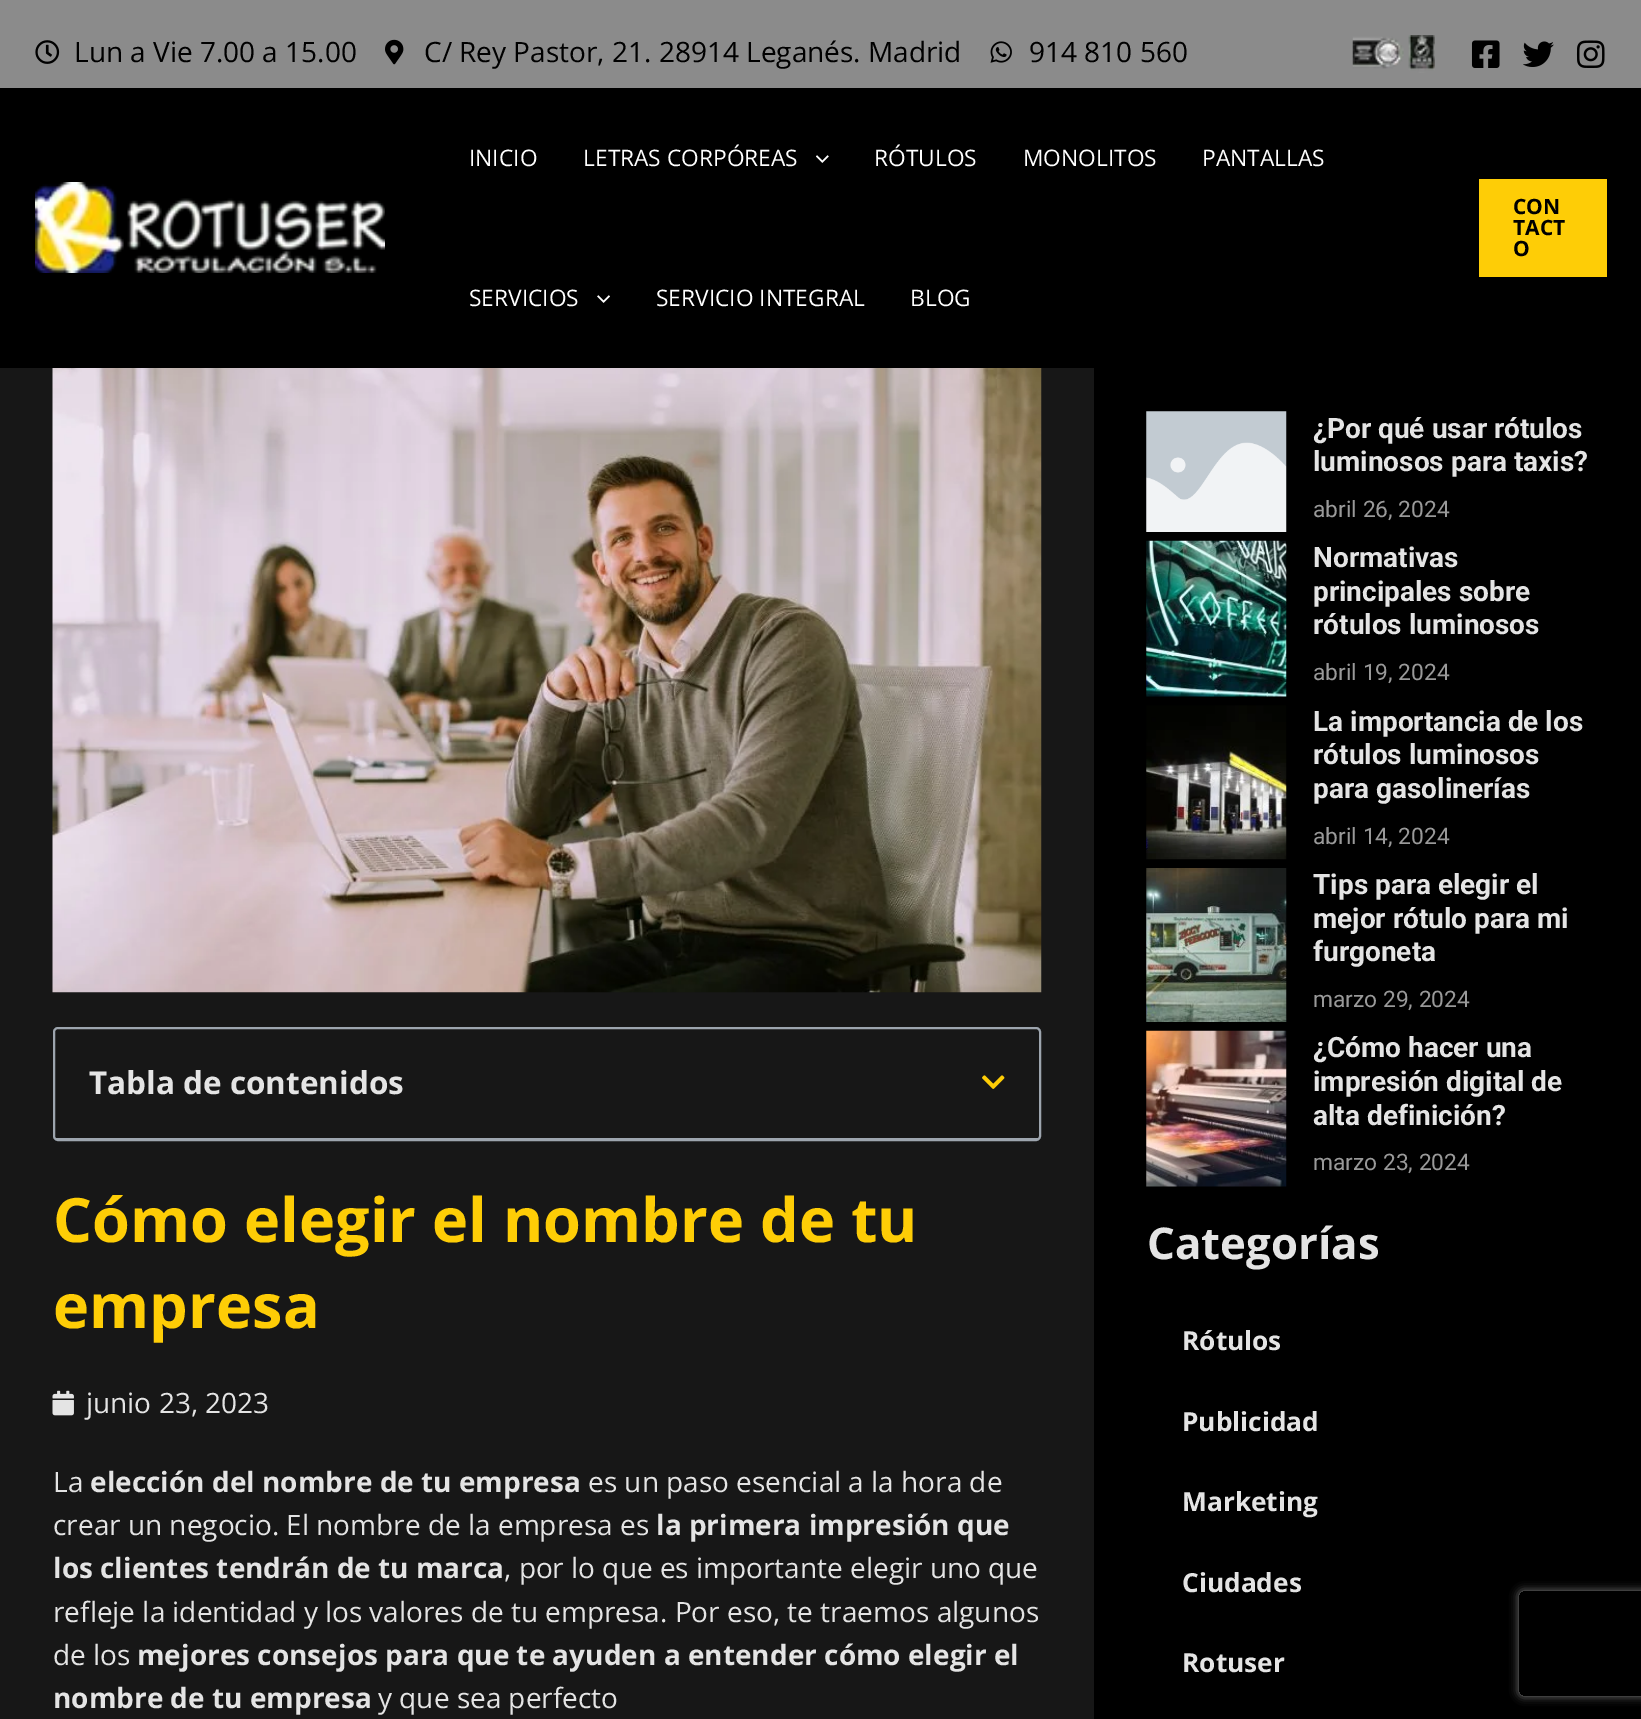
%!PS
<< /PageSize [1641 1719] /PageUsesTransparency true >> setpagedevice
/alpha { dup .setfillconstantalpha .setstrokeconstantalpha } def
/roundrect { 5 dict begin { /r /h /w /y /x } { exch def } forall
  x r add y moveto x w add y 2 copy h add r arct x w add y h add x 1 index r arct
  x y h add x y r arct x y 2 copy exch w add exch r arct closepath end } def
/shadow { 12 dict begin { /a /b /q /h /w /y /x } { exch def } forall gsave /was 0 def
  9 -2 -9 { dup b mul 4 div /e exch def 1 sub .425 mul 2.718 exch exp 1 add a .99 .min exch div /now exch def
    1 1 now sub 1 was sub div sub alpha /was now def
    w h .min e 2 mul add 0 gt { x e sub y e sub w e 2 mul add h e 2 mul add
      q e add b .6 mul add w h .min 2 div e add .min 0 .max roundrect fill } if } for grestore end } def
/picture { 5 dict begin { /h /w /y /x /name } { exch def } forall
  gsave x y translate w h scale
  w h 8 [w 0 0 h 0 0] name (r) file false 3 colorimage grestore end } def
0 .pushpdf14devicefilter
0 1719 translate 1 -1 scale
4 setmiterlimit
0.09 setgray
0 0 1641 1719 rectfill
0.545 setgray
0 0 1641 88 rectfill
(img1.rgb) 35 40 25 24 picture
/OpenSans-Regular [28 0 0 -28 0 0] selectfont
0 setgray
74 62 moveto (Lun a Vie 7.00 a 15.00) show
(img2.rgb) 385 39 19 26 picture
424 62 moveto (C/ Rey Pastor, 21. 28914 Leganés. Madrid) show
(img3.rgb) 990 41 22 22 picture
1029 62 moveto (914 810 560) show
(img4.rgb) 1352 35 83 38 picture
(img5.rgb) 1471 40 29 28 picture
(img6.rgb) 1523 41 31 26 picture
(img7.rgb) 1576 40 29 28 picture
0 88 1641 280 rectfill
(img8.rgb) 35 182 350 91 picture
/OpenSans-Regular [22.75 0 0 -22.75 0 0] selectfont
1 setgray
469 166 moveto (INICIO) show
583 166 moveto (LETRAS CORPÓREAS) show
(img9.rgb) 816 155 13 8 picture
874 166 moveto (RÓTULOS) show
1023 166 moveto (MONOLITOS) show
1202 166 moveto (PANTALLAS) show
469 306 moveto (SERVICIOS) show
(img10.rgb) 597 295 13 8 picture
656 306 moveto (SERVICIO INTEGRAL) show
910 306 moveto (BLOG) show
0.996 0.804 0.024 setrgbcolor
1479 179 128 98 rectfill
/OpenSans-Bold [21 0 0 -21 0 0] selectfont
0 setgray
1513 214 moveto (CON) show
1513 235 moveto (TACT) show
1513 256 moveto (O) show
(img11.rgb) 52 368 990 625 picture
0.616 0.647 0.682 setrgbcolor
2 setlinewidth
54 1028 986 112 4 roundrect stroke
gsave
54 1029 986 110 4 roundrect clip newpath
54 1138 986 1 rectfill
grestore
/OpenSans-Bold [31.5 0 0 -31.5 0 0] selectfont
0.894 setgray
89 1094 moveto (Tabla de contenidos) show
(img12.rgb) 982 1075 23 14 picture
/OpenSans-Bold [61.25 0 0 -61.25 0 0] selectfont
0.996 0.804 0.024 setrgbcolor
53 1242 moveto (Cómo elegir el nombre de tu) show
53 1328 moveto (empresa) show
(img13.rgb) 52 1390 22 26 picture
/OpenSans-Regular [28 0 0 -28 0 0] selectfont
0.894 setgray
86 1413 moveto (junio 23, 2023) show
53 1492 moveto (La) show
/OpenSans-Bold [28 0 0 -28 0 0] selectfont
90 1492 moveto (elección del nombre de tu empresa) show
/OpenSans-Regular [28 0 0 -28 0 0] selectfont
588 1492 moveto (es un paso esencial a la hora de) show
53 1535 moveto (crear un negocio. El nombre de la empresa es) show
/OpenSans-Bold [28 0 0 -28 0 0] selectfont
656 1535 moveto (la primera impresión que) show
53 1578 moveto (los clientes tendrán de tu marca) show
/OpenSans-Regular [28 0 0 -28 0 0] selectfont
504 1578 moveto (, por lo que es importante elegir uno que) show
53 1622 moveto (refleje la identidad y los valores de tu empresa. Por eso, te traemos algunos) show
53 1665 moveto (de los) show
/OpenSans-Bold [28 0 0 -28 0 0] selectfont
137 1665 moveto (mejores consejos para que te ayuden a entender cómo elegir el) show
53 1708 moveto (nombre de tu empresa) show
/OpenSans-Regular [28 0 0 -28 0 0] selectfont
378 1708 moveto (y que sea perfecto) show
0 setgray
1094 368 547 1351 rectfill
(img14.rgb) 1146 411 141 121 picture
/Roboto-Bold [28 0 0 -28 0 0] selectfont
0.894 setgray
1313 438 moveto (¿Por qué usar rótulos) show
1313 471 moveto (luminosos para taxis?) show
/Roboto-Regular [22.75 0 0 -22.75 0 0] selectfont
0.6 setgray
1313 517 moveto (abril 26, 2024) show
(img15.rgb) 1146 540 141 157 picture
/Roboto-Bold [28 0 0 -28 0 0] selectfont
0.894 setgray
1313 567 moveto (Normativas) show
1313 601 moveto (principales sobre) show
1313 634 moveto (rótulos luminosos) show
/Roboto-Regular [22.75 0 0 -22.75 0 0] selectfont
0.6 setgray
1313 680 moveto (abril 19, 2024) show
(img16.rgb) 1146 705 141 155 picture
/Roboto-Bold [28 0 0 -28 0 0] selectfont
0.894 setgray
1313 731 moveto (La importancia de los) show
1313 764 moveto (rótulos luminosos) show
1313 798 moveto (para gasolinerías) show
/Roboto-Regular [22.75 0 0 -22.75 0 0] selectfont
0.6 setgray
1313 844 moveto (abril 14, 2024) show
(img17.rgb) 1146 868 141 154 picture
/Roboto-Bold [28 0 0 -28 0 0] selectfont
0.894 setgray
1313 894 moveto (Tips para elegir el) show
1313 928 moveto (mejor rótulo para mi) show
1313 961 moveto (furgoneta) show
/Roboto-Regular [22.75 0 0 -22.75 0 0] selectfont
0.6 setgray
1313 1007 moveto (marzo 29, 2024) show
(img18.rgb) 1146 1030 141 157 picture
/Roboto-Bold [28 0 0 -28 0 0] selectfont
0.894 setgray
1313 1057 moveto (¿Cómo hacer una) show
1313 1091 moveto (impresión digital de) show
1313 1125 moveto (alta definición?) show
/Roboto-Regular [22.75 0 0 -22.75 0 0] selectfont
0.6 setgray
1313 1170 moveto (marzo 23, 2024) show
/OpenSans-Bold [43.75 0 0 -43.75 0 0] selectfont
0.894 setgray
1147 1259 moveto (Categorías) show
/OpenSans-Bold [26.25 0 0 -26.25 0 0] selectfont
1182 1350 moveto (Rótulos) show
1182 1431 moveto (Publicidad) show
1182 1511 moveto (Marketing) show
1182 1592 moveto (Ciudades) show
1182 1672 moveto (Rotuser) show
gsave
newpath 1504 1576 moveto 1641 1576 lineto 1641 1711 lineto 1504 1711 lineto closepath 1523 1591 moveto 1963 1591 lineto 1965 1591 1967 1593 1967 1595 curveto 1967 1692 lineto 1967 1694 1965 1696 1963 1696 curveto 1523 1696 lineto 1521 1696 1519 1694 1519 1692 curveto 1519 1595 lineto 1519 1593 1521 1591 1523 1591 curveto closepath eoclip newpath
0.502 setgray
1519 1591 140 105 4 4.5 1 shadow
grestore
.poppdf14devicefilter showpage
